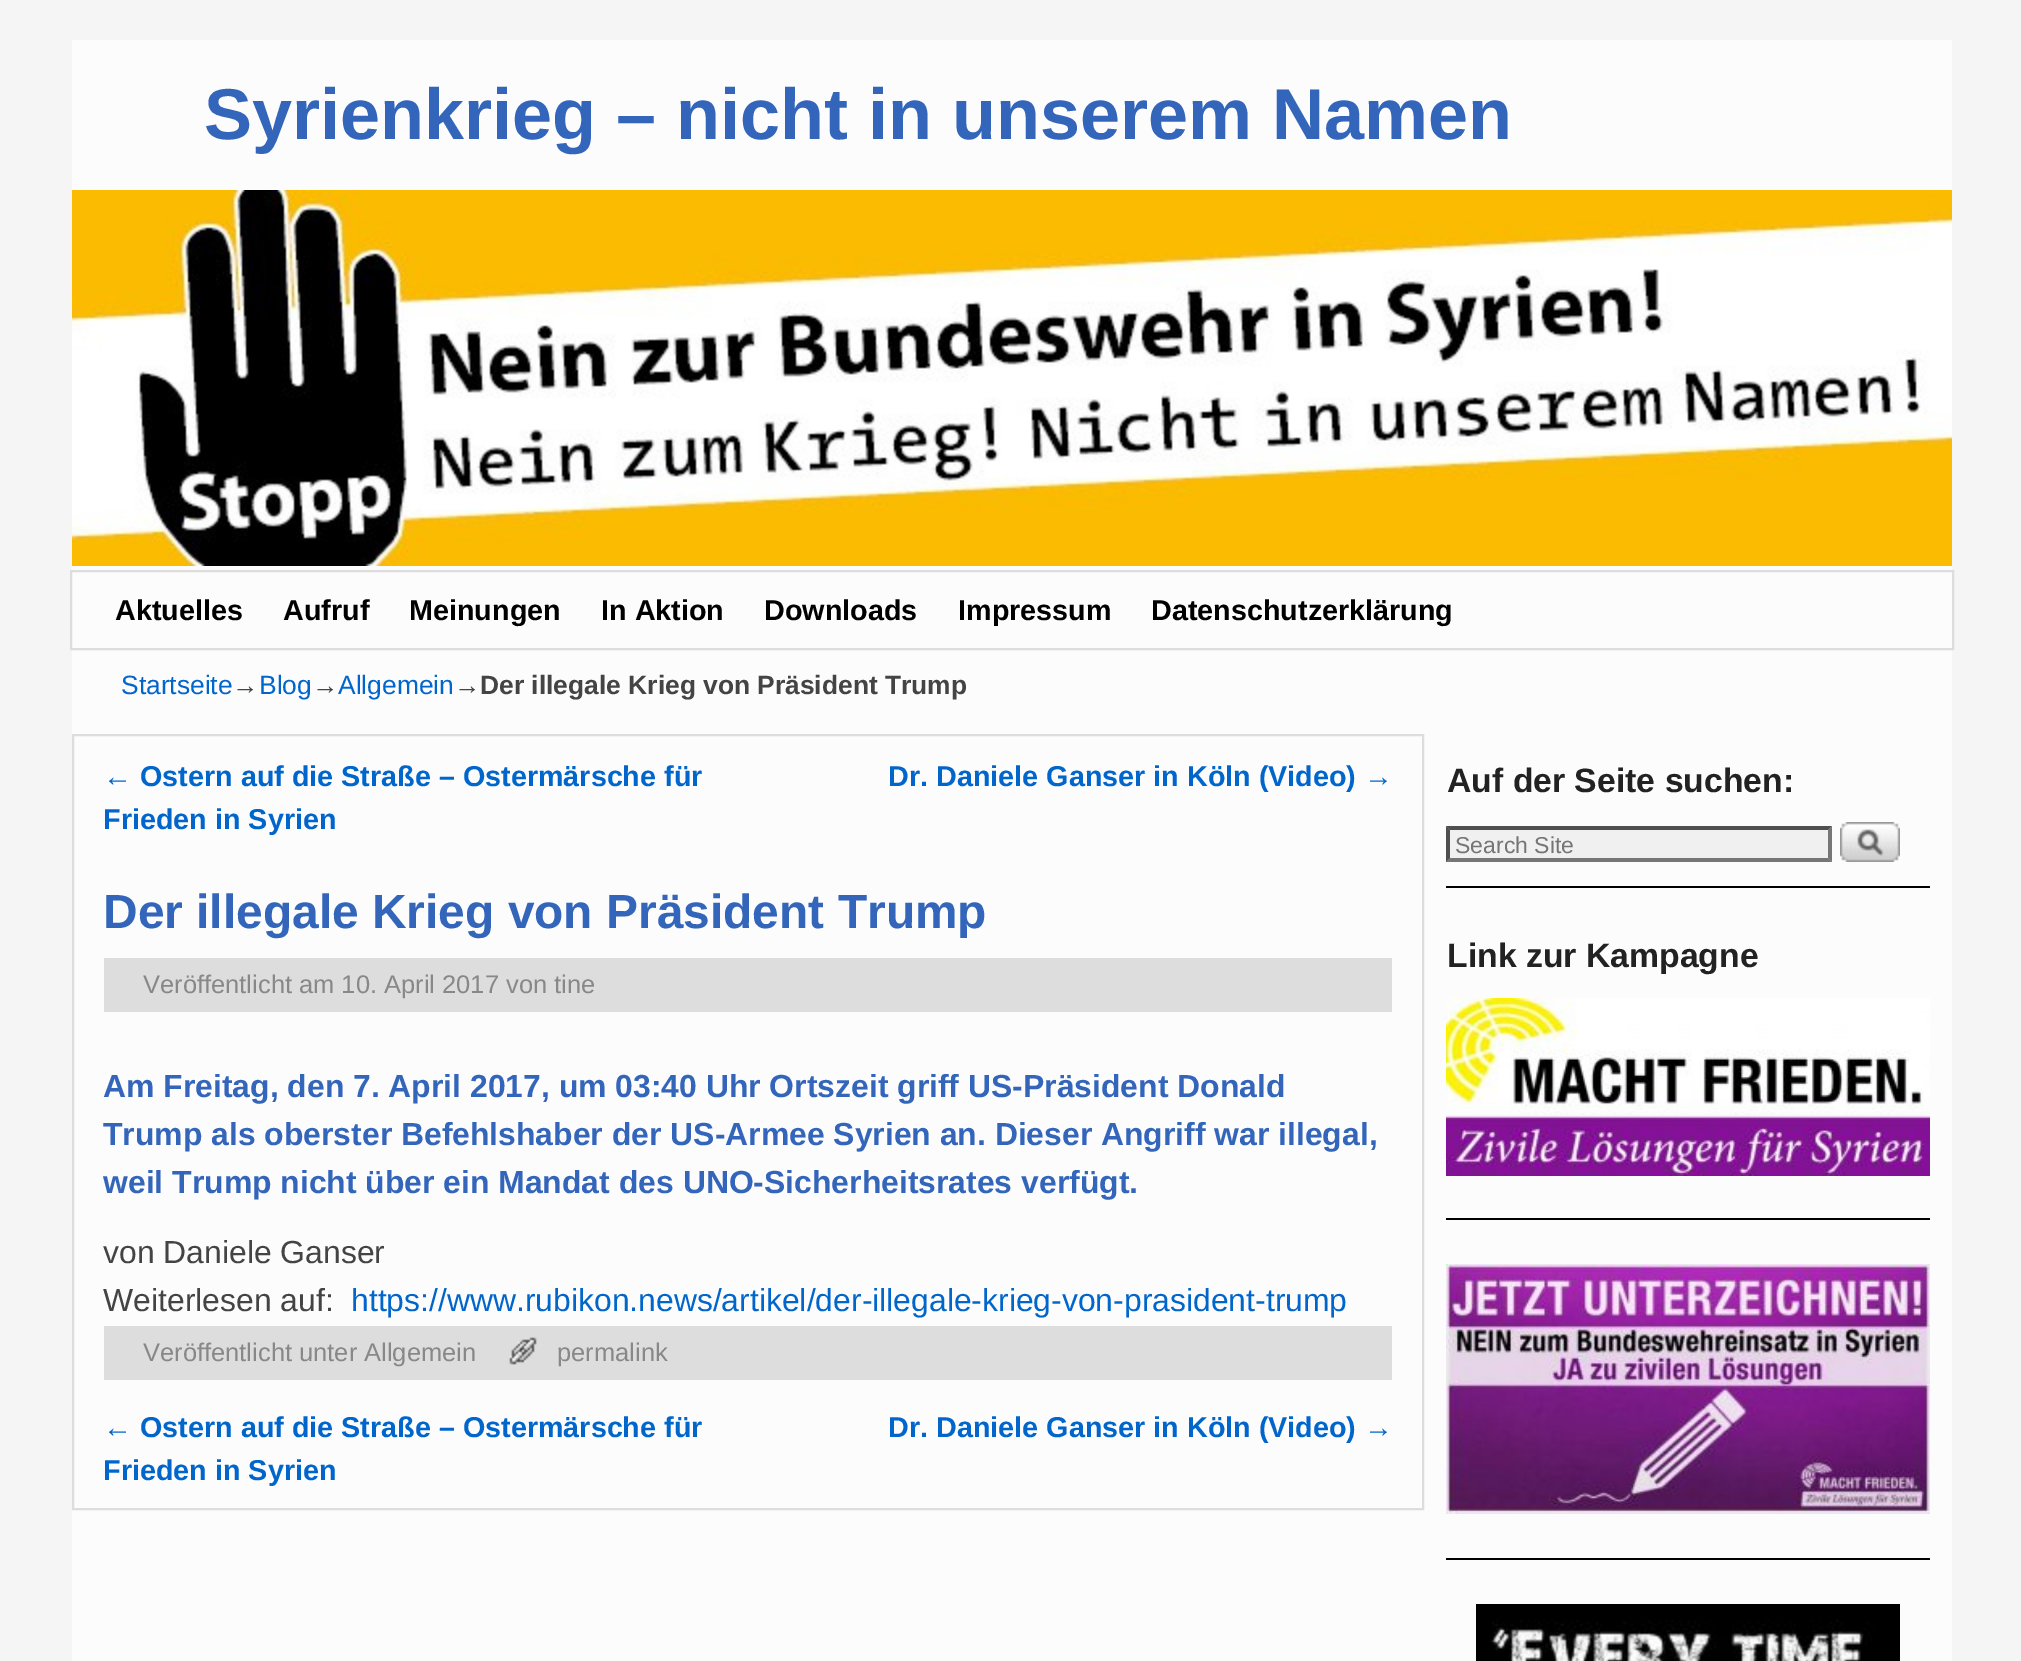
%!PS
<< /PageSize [2021 1661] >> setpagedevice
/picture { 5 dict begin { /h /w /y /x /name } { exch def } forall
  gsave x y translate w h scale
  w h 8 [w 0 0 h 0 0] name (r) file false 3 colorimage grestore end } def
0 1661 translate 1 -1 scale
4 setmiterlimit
0.961 setgray
0 0 2021 1661 rectfill
0.988 setgray
72 40 1880 1621 rectfill
/LiberationSans-Bold [72 0 0 -72 0 0] selectfont
0.2 0.4 0.733 setrgbcolor
204 139 moveto (Syrienkrieg – nicht in unserem Namen) show
(img1.rgb) 72 190 1880 376 picture
0.867 setgray
2 setlinewidth
71 571 1882 78 rectstroke
/LiberationSans-Bold [28.75 0 0 -28.75 0 0] selectfont
0 setgray
115 620 moveto (Aktuelles) show
283 620 moveto (Aufruf) show
409 620 moveto (Meinungen) show
601 620 moveto (In Aktion) show
764 620 moveto (Downloads) show
958 620 moveto (Impressum) show
1151 620 moveto (Datenschutzerklärung) show
/LiberationSans-Regular [26.4 0 0 -26.4 0 0] selectfont
0 0.4 0.8 setrgbcolor
121 694 moveto (Startseite) show
0.267 setgray
232 694 moveto (→) show
0 0.4 0.8 setrgbcolor
259 694 moveto (Blog) show
0.267 setgray
312 694 moveto (→) show
0 0.4 0.8 setrgbcolor
338 694 moveto (Allgemein) show
0.267 setgray
454 694 moveto (→) show
/LiberationSans-Bold [26.4 0 0 -26.4 0 0] selectfont
480 694 moveto (Der illegale Krieg von Präsident Trump) show
0.867 setgray
73 735 1350 774 rectstroke
/LiberationSans-Regular [28.75 0 0 -28.75 0 0] selectfont
0 0.4 0.8 setrgbcolor
103 786 moveto (←) show
/LiberationSans-Bold [28.75 0 0 -28.75 0 0] selectfont
140 786 moveto (Ostern auf die Straße – Ostermärsche für) show
103 829 moveto (Frieden in Syrien) show
888 786 moveto (Dr. Daniele Ganser in Köln \(Video\)) show
/LiberationSans-Regular [28.75 0 0 -28.75 0 0] selectfont
1364 786 moveto (→) show
/LiberationSans-Bold [47.9 0 0 -47.9 0 0] selectfont
0.2 0.4 0.733 setrgbcolor
103 928 moveto (Der illegale Krieg von Präsident Trump) show
0.867 setgray
104 958 1288 54 rectfill
/LiberationSans-Regular [25.5 0 0 -25.5 0 0] selectfont
0.533 setgray
143 993 moveto (Veröffentlicht am 10. April 2017 von tine) show
/LiberationSans-Bold [31.9 0 0 -31.9 0 0] selectfont
0.2 0.4 0.733 setrgbcolor
103 1097 moveto (Am Freitag, den 7. April 2017, um 03:40 Uhr Ortszeit griff US-Präsident Donald) show
103 1145 moveto (Trump als oberster Befehlshaber der US-Armee Syrien an. Dieser Angriff war illegal,) show
103 1193 moveto (weil Trump nicht über ein Mandat des UNO-Sicherheitsrates verfügt.) show
/LiberationSans-Regular [31.9 0 0 -31.9 0 0] selectfont
0.267 setgray
103 1263 moveto (von Daniele Ganser) show
103 1311 moveto (Weiterlesen auf:) show
0 0.4 0.8 setrgbcolor
351 1311 moveto (https://www.rubikon.news/artikel/der-illegale-krieg-von-prasident-trump) show
0.867 setgray
104 1326 1288 54 rectfill
/LiberationSans-Regular [25.5 0 0 -25.5 0 0] selectfont
0.533 setgray
143 1361 moveto (Veröffentlicht unter Allgemein) show
(img2.rgb) 509 1337 28 28 picture
557 1361 moveto (permalink) show
/LiberationSans-Regular [28.75 0 0 -28.75 0 0] selectfont
0 0.4 0.8 setrgbcolor
103 1437 moveto (←) show
/LiberationSans-Bold [28.75 0 0 -28.75 0 0] selectfont
140 1437 moveto (Ostern auf die Straße – Ostermärsche für) show
103 1480 moveto (Frieden in Syrien) show
888 1437 moveto (Dr. Daniele Ganser in Köln \(Video\)) show
/LiberationSans-Regular [28.75 0 0 -28.75 0 0] selectfont
1364 1437 moveto (→) show
/LiberationSans-Bold [33.75 0 0 -33.75 0 0] selectfont
0.133 setgray
1447 792 moveto (Auf der Seite suchen:) show
0.941 setgray
1446 826 386 36 rectfill
0.31 setgray
newpath 1446 826 moveto 1832 826 lineto 1828 830 lineto 1450 830 lineto closepath fill
0.463 setgray
newpath 1832 826 moveto 1832 862 lineto 1828 858 lineto 1828 830 lineto closepath fill
newpath 1832 862 moveto 1446 862 lineto 1450 858 lineto 1828 858 lineto closepath fill
0.31 setgray
newpath 1446 862 moveto 1446 826 lineto 1450 830 lineto 1450 858 lineto closepath fill
/LiberationSans-Regular [23 0 0 -23 0 0] selectfont
0.459 setgray
1455 853 moveto (Search Site) show
(img3.rgb) 1840 822 60 40 picture
0 setgray
1446 886 484 2 rectfill
/LiberationSans-Bold [33.75 0 0 -33.75 0 0] selectfont
0.133 setgray
1447 967 moveto (Link zur Kampagne) show
(img4.rgb) 1446 998 484 178 picture
0 setgray
1446 1218 484 2 rectfill
(img5.rgb) 1446 1264 484 250 picture
1446 1558 484 2 rectfill
(img6.rgb) 1476 1604 424 57 picture
showpage
